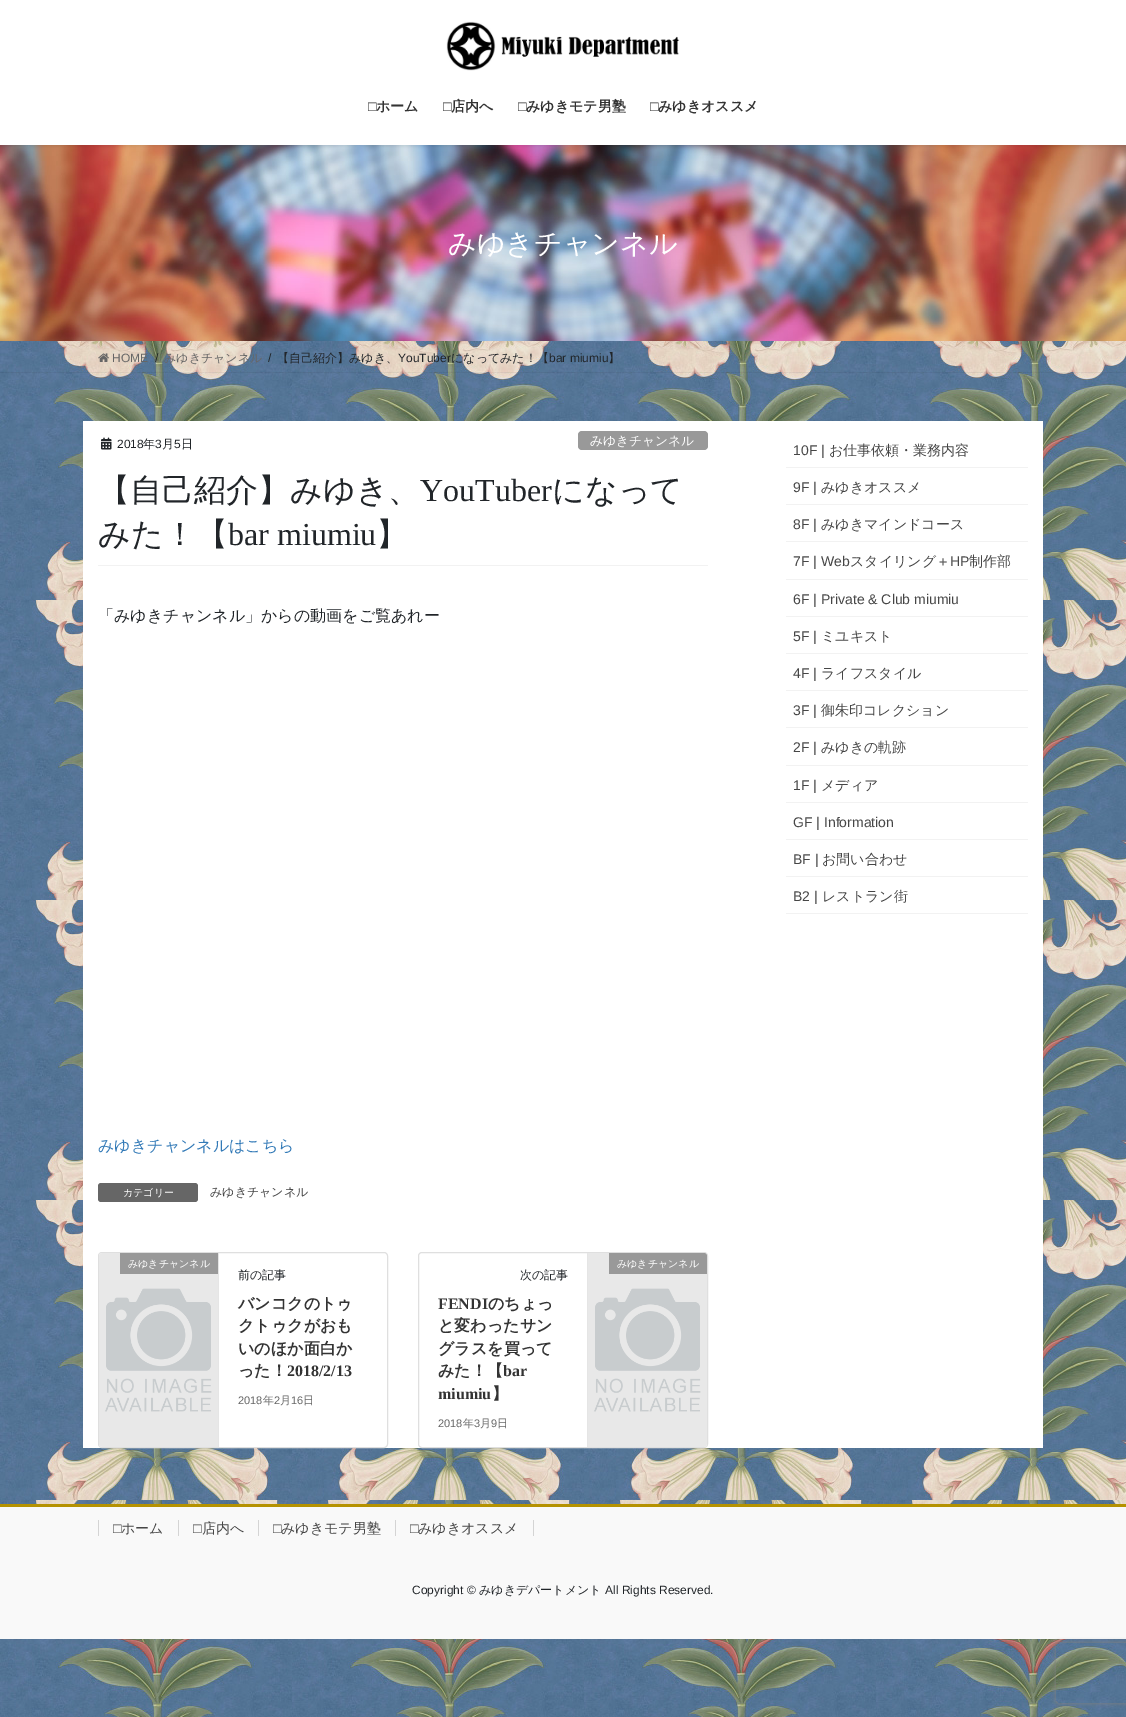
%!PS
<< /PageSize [1126 1717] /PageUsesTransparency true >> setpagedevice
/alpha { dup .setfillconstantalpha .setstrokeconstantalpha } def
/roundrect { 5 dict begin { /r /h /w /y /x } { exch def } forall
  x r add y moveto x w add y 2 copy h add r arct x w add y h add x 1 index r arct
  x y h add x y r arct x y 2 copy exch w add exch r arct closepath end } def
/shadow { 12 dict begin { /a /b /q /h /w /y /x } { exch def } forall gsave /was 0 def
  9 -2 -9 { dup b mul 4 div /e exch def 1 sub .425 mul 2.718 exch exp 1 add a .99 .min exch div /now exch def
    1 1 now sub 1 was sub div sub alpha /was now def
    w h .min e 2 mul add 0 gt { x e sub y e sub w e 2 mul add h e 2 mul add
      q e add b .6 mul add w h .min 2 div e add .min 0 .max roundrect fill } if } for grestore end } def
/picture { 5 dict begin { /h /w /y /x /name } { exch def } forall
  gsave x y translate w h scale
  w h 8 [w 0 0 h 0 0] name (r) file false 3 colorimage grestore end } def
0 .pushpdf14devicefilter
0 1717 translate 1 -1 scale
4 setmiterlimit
1 setgray
0 0 1126 1717 rectfill
(img1.rgb) 0 341 1126 1376 picture
(img3.rgb) 0 145 1126 196 picture
0 setgray
0 1 1126 145 0 1.5 0.1 shadow
1 setgray
0 0 1126 145 rectfill
(img2.rgb) 446 21 234 50 picture
/LiberationSans-Bold [14 0 0 -14 0 0] selectfont
0.2 setgray
368 111 moveto (□) show
/WenQuanYiZenHei-Bold [14 0 0 -14 0 0] selectfont
376 111 moveto (ホーム) show
/LiberationSans-Bold [14 0 0 -14 0 0] selectfont
443 111 moveto (□) show
/WenQuanYiZenHei-Bold [14 0 0 -14 0 0] selectfont
451 111 moveto (店内へ) show
/LiberationSans-Bold [14 0 0 -14 0 0] selectfont
518 111 moveto (□) show
/WenQuanYiZenHei-Bold [14 0 0 -14 0 0] selectfont
526 111 moveto (みゆきモテ男塾) show
/LiberationSans-Bold [14 0 0 -14 0 0] selectfont
650 111 moveto (□) show
/WenQuanYiZenHei-Bold [14 0 0 -14 0 0] selectfont
658 111 moveto (みゆきオススメ) show
/WenQuanYiZenHei-Medium [28 0 0 -28 0 0] selectfont
1 setgray
448 253 moveto (みゆきチャンネル) show
0.05 alpha
0 setgray
0 372 1126 1 rectfill
1 alpha
(img4.rgb) 98 353 11 9 picture
/LiberationSans-Regular [12 0 0 -12 0 0] selectfont
0.4 setgray
112 362 moveto (HOME) show
0.129 0.145 0.161 setrgbcolor
155 362 moveto (/) show
/WenQuanYiZenHei-Medium [12 0 0 -12 0 0] selectfont
0.4 setgray
164 362 moveto (みゆきチャンネル) show
/LiberationSans-Regular [12 0 0 -12 0 0] selectfont
0.129 0.145 0.161 setrgbcolor
268 362 moveto (/) show
/WenQuanYiZenHei-Medium [12 0 0 -12 0 0] selectfont
277 362 moveto (【自己紹介】みゆき、) show
/LiberationSans-Regular [12 0 0 -12 0 0] selectfont
398 362 moveto (YouTuber) show
/WenQuanYiZenHei-Medium [12 0 0 -12 0 0] selectfont
451 362 moveto (になってみた！【) show
/LiberationSans-Regular [12 0 0 -12 0 0] selectfont
549 362 moveto (bar miumiu) show
/WenQuanYiZenHei-Medium [12 0 0 -12 0 0] selectfont
608 362 moveto (】) show
1 setgray
83 421 960 1027 rectfill
0.949 setgray
98 565 610 1 rectfill
(img5.rgb) 101 437 11 13 picture
/LiberationSans-Regular [12 0 0 -12 0 0] selectfont
0.129 0.145 0.161 setrgbcolor
117 448 moveto (2018) show
/WenQuanYiZenHei-Medium [12 0 0 -12 0 0] selectfont
143 448 moveto (年) show
/LiberationSans-Regular [12 0 0 -12 0 0] selectfont
155 448 moveto (3) show
/WenQuanYiZenHei-Medium [12 0 0 -12 0 0] selectfont
162 448 moveto (月) show
/LiberationSans-Regular [12 0 0 -12 0 0] selectfont
174 448 moveto (5) show
/WenQuanYiZenHei-Medium [12 0 0 -12 0 0] selectfont
181 448 moveto (日) show
0.6 setgray
578 431 130 19 4 roundrect fill
/WenQuanYiZenHei-Medium [12.75 0 0 -12.75 0 0] selectfont
1 setgray
590 445 moveto (みゆきチャンネル) show
/WenQuanYiZenHei-Medium [32 0 0 -32 0 0] selectfont
0.129 0.145 0.161 setrgbcolor
98 501 moveto (【自己紹介】みゆき、) show
/LiberationSerif-Regular [32 0 0 -32 0 0] selectfont
420 501 moveto (YouTuber) show
/WenQuanYiZenHei-Medium [32 0 0 -32 0 0] selectfont
552 501 moveto (になって) show
98 545 moveto (みた！【) show
/LiberationSerif-Regular [32 0 0 -32 0 0] selectfont
228 545 moveto (bar miumiu) show
/WenQuanYiZenHei-Medium [32 0 0 -32 0 0] selectfont
376 545 moveto (】) show
/WenQuanYiZenHei-Medium [16 0 0 -16 0 0] selectfont
98 621 moveto (「みゆきチャンネル」からの動画をご覧あれー) show
0.2 0.478 0.718 setrgbcolor
98 1151 moveto (みゆきチャンネルはこちら) show
0.4 setgray
98 1183 100 19 3 roundrect fill
/WenQuanYiZenHei-Medium [10 0 0 -10 0 0] selectfont
1 setgray
123 1196 moveto (カテゴリー) show
/WenQuanYiZenHei-Medium [12 0 0 -12 0 0] selectfont
0.275 setgray
210 1196 moveto (みゆきチャンネル) show
0.875 setgray
98.5 1252.5 289 195 3.5 roundrect stroke
(img6.rgb) 99 1253 119 194 picture
0.898 setgray
218 1253 1 194 rectfill
0.6 setgray
120 1253 98 21 rectfill
/WenQuanYiZenHei-Medium [10 0 0 -10 0 0] selectfont
1 setgray
128 1267 moveto (みゆきチャンネル) show
/WenQuanYiZenHei-Medium [12 0 0 -12 0 0] selectfont
0.129 0.145 0.161 setrgbcolor
238 1279 moveto (前の記事) show
/WenQuanYiZenHei-Bold [16 0 0 -16 0 0] selectfont
0.2 setgray
238 1309 moveto (バンコクのトゥ) show
238 1331 moveto (クトゥクがおも) show
238 1354 moveto (いのほか面白か) show
238 1376 moveto (った！) show
/LiberationSerif-Bold [16 0 0 -16 0 0] selectfont
287 1376 moveto (2018/2/13) show
/LiberationSans-Regular [11 0 0 -11 0 0] selectfont
0.4 setgray
238 1404 moveto (2018) show
/WenQuanYiZenHei-Medium [11 0 0 -11 0 0] selectfont
263 1404 moveto (年) show
/LiberationSans-Regular [11 0 0 -11 0 0] selectfont
274 1404 moveto (2) show
/WenQuanYiZenHei-Medium [11 0 0 -11 0 0] selectfont
280 1404 moveto (月) show
/LiberationSans-Regular [11 0 0 -11 0 0] selectfont
291 1404 moveto (16) show
/WenQuanYiZenHei-Medium [11 0 0 -11 0 0] selectfont
303 1404 moveto (日) show
0.875 setgray
418.5 1252.5 289 195 3.5 roundrect stroke
(img7.rgb) 588 1253 119 194 picture
0.898 setgray
587 1253 1 194 rectfill
0.6 setgray
newpath 609 1253 moveto 704 1253 lineto 705.5 1253 707 1254.5 707 1256 curveto 707 1274 lineto 609 1274 lineto closepath fill
/WenQuanYiZenHei-Medium [10 0 0 -10 0 0] selectfont
1 setgray
617 1267 moveto (みゆきチャンネル) show
/WenQuanYiZenHei-Medium [12 0 0 -12 0 0] selectfont
0.129 0.145 0.161 setrgbcolor
520 1279 moveto (次の記事) show
/LiberationSerif-Bold [16 0 0 -16 0 0] selectfont
0.2 setgray
438 1309 moveto (FENDI) show
/WenQuanYiZenHei-Bold [16 0 0 -16 0 0] selectfont
488 1309 moveto (のちょっ) show
438 1331 moveto (と変わったサン) show
438 1354 moveto (グラスを買って) show
438 1376 moveto (みた！【) show
/LiberationSerif-Bold [16 0 0 -16 0 0] selectfont
503 1376 moveto (bar) show
438 1399 moveto (miumiu) show
/WenQuanYiZenHei-Bold [16 0 0 -16 0 0] selectfont
492 1399 moveto (】) show
/LiberationSans-Regular [11 0 0 -11 0 0] selectfont
0.4 setgray
438 1427 moveto (2018) show
/WenQuanYiZenHei-Medium [11 0 0 -11 0 0] selectfont
463 1427 moveto (年) show
/LiberationSans-Regular [11 0 0 -11 0 0] selectfont
474 1427 moveto (3) show
/WenQuanYiZenHei-Medium [11 0 0 -11 0 0] selectfont
480 1427 moveto (月) show
/LiberationSans-Regular [11 0 0 -11 0 0] selectfont
491 1427 moveto (9) show
/WenQuanYiZenHei-Medium [11 0 0 -11 0 0] selectfont
497 1427 moveto (日) show
0.949 setgray
786 467 242 1 rectfill
/LiberationSans-Regular [14 0 0 -14 0 0] selectfont
0.275 setgray
793 455 moveto (10F |) show
/WenQuanYiZenHei-Medium [14 0 0 -14 0 0] selectfont
829 455 moveto (お仕事依頼・業務内容) show
0.949 setgray
786 504 242 1 rectfill
/LiberationSans-Regular [14 0 0 -14 0 0] selectfont
0.275 setgray
793 492 moveto (9F |) show
/WenQuanYiZenHei-Medium [14 0 0 -14 0 0] selectfont
821 492 moveto (みゆきオススメ) show
0.949 setgray
786 541 242 1 rectfill
/LiberationSans-Regular [14 0 0 -14 0 0] selectfont
0.275 setgray
793 529 moveto (8F |) show
/WenQuanYiZenHei-Medium [14 0 0 -14 0 0] selectfont
821 529 moveto (みゆきマインドコース) show
0.949 setgray
786 579 242 1 rectfill
/LiberationSans-Regular [14 0 0 -14 0 0] selectfont
0.275 setgray
793 566 moveto (7F | Web) show
/WenQuanYiZenHei-Medium [14 0 0 -14 0 0] selectfont
850 566 moveto (スタイリング＋) show
/LiberationSans-Regular [14 0 0 -14 0 0] selectfont
950 566 moveto (HP) show
/WenQuanYiZenHei-Medium [14 0 0 -14 0 0] selectfont
969 566 moveto (制作部) show
0.949 setgray
786 616 242 1 rectfill
/LiberationSans-Regular [14 0 0 -14 0 0] selectfont
0.275 setgray
793 604 moveto (6F | Private & Club miumiu) show
0.949 setgray
786 653 242 1 rectfill
0.275 setgray
793 641 moveto (5F |) show
/WenQuanYiZenHei-Medium [14 0 0 -14 0 0] selectfont
821 641 moveto (ミユキスト) show
0.949 setgray
786 690 242 1 rectfill
/LiberationSans-Regular [14 0 0 -14 0 0] selectfont
0.275 setgray
793 678 moveto (4F |) show
/WenQuanYiZenHei-Medium [14 0 0 -14 0 0] selectfont
821 678 moveto (ライフスタイル) show
0.949 setgray
786 727 242 1 rectfill
/LiberationSans-Regular [14 0 0 -14 0 0] selectfont
0.275 setgray
793 715 moveto (3F |) show
/WenQuanYiZenHei-Medium [14 0 0 -14 0 0] selectfont
821 715 moveto (御朱印コレクション) show
0.949 setgray
786 765 242 1 rectfill
/LiberationSans-Regular [14 0 0 -14 0 0] selectfont
0.275 setgray
793 752 moveto (2F |) show
/WenQuanYiZenHei-Medium [14 0 0 -14 0 0] selectfont
821 752 moveto (みゆきの軌跡) show
0.949 setgray
786 802 242 1 rectfill
/LiberationSans-Regular [14 0 0 -14 0 0] selectfont
0.275 setgray
793 790 moveto (1F |) show
/WenQuanYiZenHei-Medium [14 0 0 -14 0 0] selectfont
821 790 moveto (メディア) show
0.949 setgray
786 839 242 1 rectfill
/LiberationSans-Regular [14 0 0 -14 0 0] selectfont
0.275 setgray
793 827 moveto (GF | Information) show
0.949 setgray
786 876 242 1 rectfill
0.275 setgray
793 864 moveto (BF |) show
/WenQuanYiZenHei-Medium [14 0 0 -14 0 0] selectfont
822 864 moveto (お問い合わせ) show
0.949 setgray
786 913 242 1 rectfill
/LiberationSans-Regular [14 0 0 -14 0 0] selectfont
0.275 setgray
793 901 moveto (B2 |) show
/WenQuanYiZenHei-Medium [14 0 0 -14 0 0] selectfont
822 901 moveto (レストラン街) show
0.976 setgray
0 1507 1126 132 rectfill
0.71 0.573 0 setrgbcolor
0 1504 1126 3 rectfill
/LiberationSans-Regular [14 0 0 -14 0 0] selectfont
0.275 setgray
113 1533 moveto (□) show
0.831 setgray
98 1520 1 16 rectfill
/WenQuanYiZenHei-Medium [14 0 0 -14 0 0] selectfont
0.275 setgray
121 1533 moveto (ホーム) show
/LiberationSans-Regular [14 0 0 -14 0 0] selectfont
193 1533 moveto (□) show
0.831 setgray
178 1520 1 16 rectfill
/WenQuanYiZenHei-Medium [14 0 0 -14 0 0] selectfont
0.275 setgray
202 1533 moveto (店内へ) show
/LiberationSans-Regular [14 0 0 -14 0 0] selectfont
273 1533 moveto (□) show
0.831 setgray
258 1520 1 16 rectfill
/WenQuanYiZenHei-Medium [14 0 0 -14 0 0] selectfont
0.275 setgray
281 1533 moveto (みゆきモテ男塾) show
/LiberationSans-Regular [14 0 0 -14 0 0] selectfont
410 1533 moveto (□) show
0.831 setgray
395 1520 1 16 rectfill
/WenQuanYiZenHei-Medium [14 0 0 -14 0 0] selectfont
0.275 setgray
418 1533 moveto (みゆきオススメ) show
0.831 setgray
533 1520 1 16 rectfill
/LiberationSans-Regular [12 0 0 -12 0 0] selectfont
0.129 0.145 0.161 setrgbcolor
412 1594 moveto (Copyright ©) show
/WenQuanYiZenHei-Medium [12 0 0 -12 0 0] selectfont
479 1594 moveto (みゆきデパートメント) show
/LiberationSans-Regular [12 0 0 -12 0 0] selectfont
605 1594 moveto (All Rights Reserved.) show
gsave
newpath 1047 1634 moveto 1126 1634 lineto 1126 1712 lineto 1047 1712 lineto closepath 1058 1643 moveto 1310 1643 lineto 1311 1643 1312 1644 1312 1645 curveto 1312 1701 lineto 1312 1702 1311 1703 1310 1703 curveto 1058 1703 lineto 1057 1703 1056 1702 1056 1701 curveto 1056 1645 lineto 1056 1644 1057 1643 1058 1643 curveto closepath eoclip newpath
0.502 setgray
1056 1643 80 60 2 2.5 1 shadow
grestore
.poppdf14devicefilter showpage
